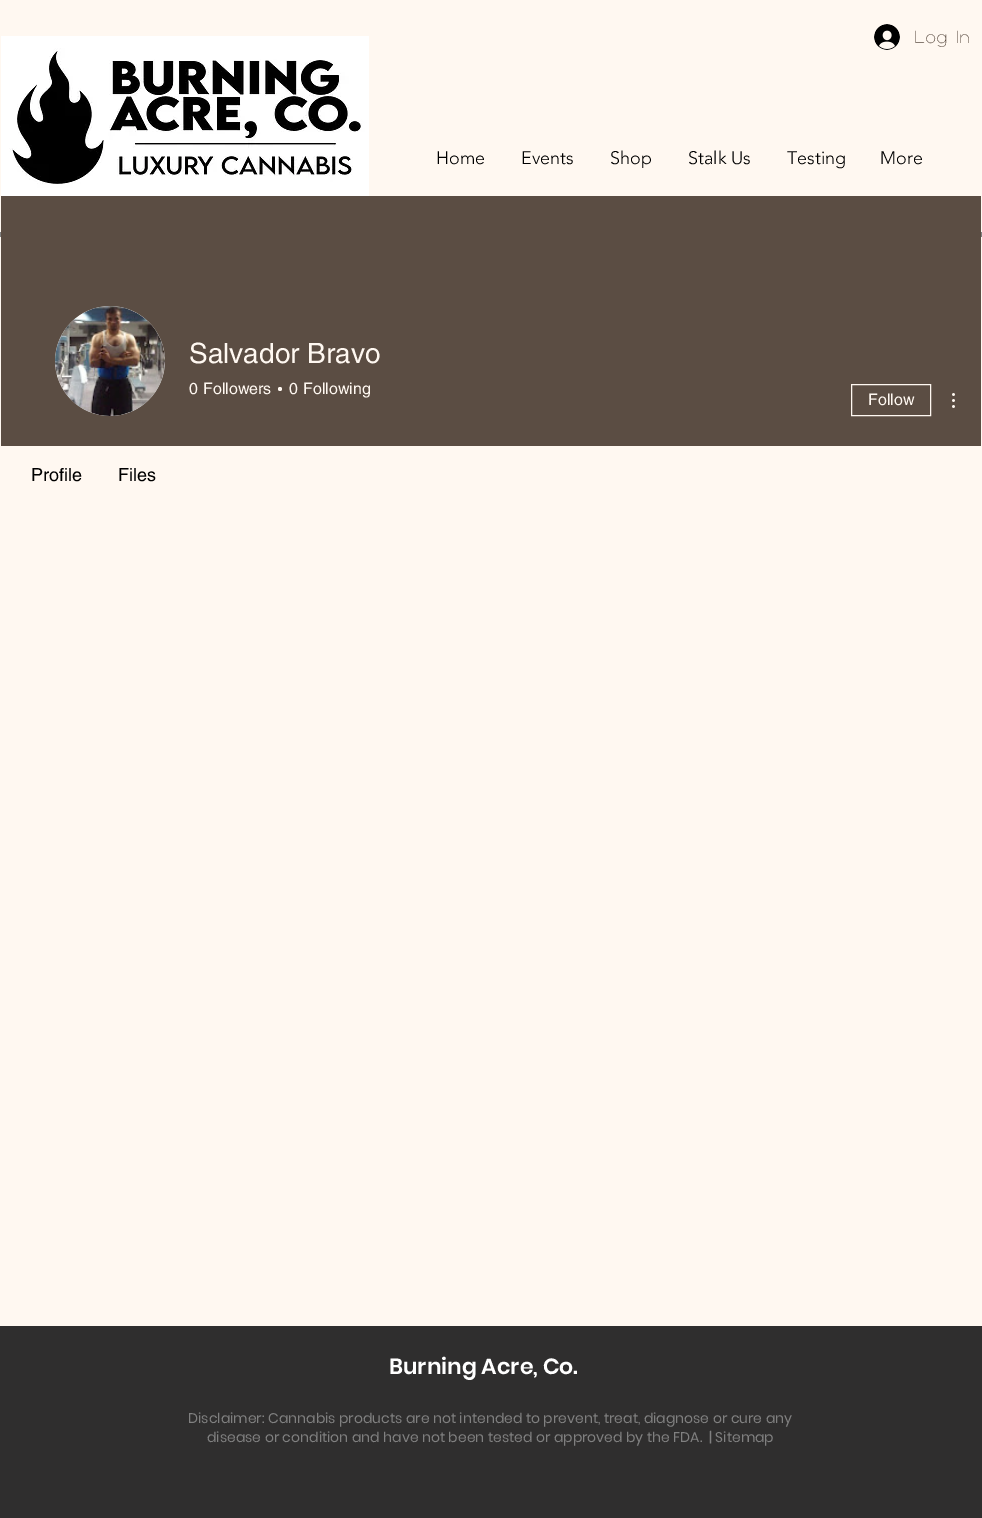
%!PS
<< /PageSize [982 1518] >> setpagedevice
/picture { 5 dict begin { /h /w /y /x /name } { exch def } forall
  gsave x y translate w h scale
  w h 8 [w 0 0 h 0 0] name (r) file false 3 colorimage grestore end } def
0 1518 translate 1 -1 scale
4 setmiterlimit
1 0.973 0.945 setrgbcolor
0 0 982 1518 rectfill
(img1.rgb) 1 36 368 160 picture
/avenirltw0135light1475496-Light [18 0 0 -18 0 0] selectfont
0 setgray
436 164 moveto (Home) show
521 164 moveto (Events) show
610 164 moveto (Shop) show
688 164 moveto (Stalk Us) show
787 164 moveto (Testing) show
880 164 moveto (More) show
(img2.rgb) 874 24 26 26 picture
/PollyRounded-Light [18 0 0 -18 0 0] selectfont
0.357 0.302 0.263 setrgbcolor
914 43 moveto (Log In) show
0.502 setgray
0 232 982 5 rectfill
0.357 0.302 0.263 setrgbcolor
1 196 980 250 rectfill
0.847 setgray
newpath 110 361 55 0 360 arc closepath fill
(img3.rgb) 55 306 110 110 picture
/helvetica-Regular [28 0 0 -28 0 0] selectfont
1 0.973 0.945 setrgbcolor
189 363 moveto (Salvador Bravo) show
/helvetica-Regular [16 0 0 -16 0 0] selectfont
189 394 moveto (0) show
203 394 moveto (Followers) show
newpath 280 389 2 0 360 arc closepath fill
289 394 moveto (0) show
303 394 moveto (Following) show
851.5 384.5 79 31 rectstroke
868 405 moveto (Follow) show
(img4.rgb) 952 393 3 15 picture
/helvetica-Regular [18 0 0 -18 0 0] selectfont
0 setgray
31 481 moveto (Profile) show
118 481 moveto (Files) show
0.184 0.18 0.18 setrgbcolor
0 1326 982 192 rectfill
/Poppins-SemiBold [22 0 0 -22 0 0] selectfont
1 setgray
389 1374 moveto (Burning Acre, Co.) show
/Poppins-Regular [14 0 0 -14 0 0] selectfont
0.502 setgray
188 1423 moveto (Disclaimer: Cannabis products are not intended to prevent, treat, diagnose or cure any) show
207 1442 moveto (disease or condition and have not been tested or approved by the FDA.  | Sitemap) show
showpage
